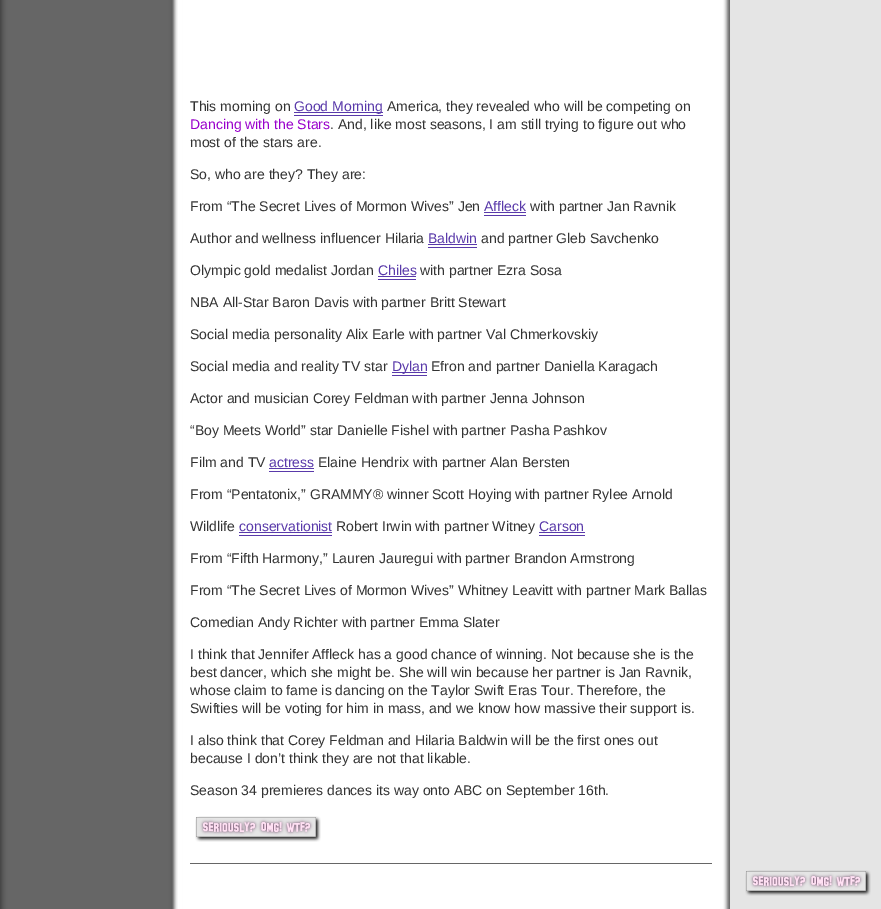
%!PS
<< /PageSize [881 909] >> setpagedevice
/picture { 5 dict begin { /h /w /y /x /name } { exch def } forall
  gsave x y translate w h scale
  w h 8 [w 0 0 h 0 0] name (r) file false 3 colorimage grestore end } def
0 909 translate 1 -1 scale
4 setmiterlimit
1 setgray
0 0 881 909 rectfill
(img1.rgb) 0 0 881 909 picture
/LiberationSans-Regular [14 0 0 -14 0 0] selectfont
0.2 setgray
190 111 moveto (This morning on) show
0.349 0.224 0.667 setrgbcolor
294 112 89 1 rectfill
294 111 moveto (Good Morning) show
294 115 89 1 rectfill
0.2 setgray
387 111 moveto (America, they revealed who will be competing on) show
0.6 0 0.8 setrgbcolor
190 129 moveto (Dancing with the Stars) show
0.2 setgray
330 129 moveto (. And, like most seasons, I am still trying to figure out who) show
190 147 moveto (most of the stars are.) show
190 179 moveto (So, who are they? They are:) show
190 211 moveto (From “The Secret Lives of Mormon Wives” Jen) show
0.349 0.224 0.667 setrgbcolor
484 211 moveto (Affleck) show
484 215 42 1 rectfill
484 212 42 1 rectfill
0.2 setgray
530 211 moveto (with partner Jan Ravnik) show
190 243 moveto (Author and wellness influencer Hilaria) show
0.349 0.224 0.667 setrgbcolor
428 243 moveto (Baldwin) show
428 247 49 1 rectfill
428 244 49 1 rectfill
0.2 setgray
481 243 moveto (and partner Gleb Savchenko) show
190 275 moveto (Olympic gold medalist Jordan) show
0.349 0.224 0.667 setrgbcolor
378 275 moveto (Chiles) show
378 279 38 1 rectfill
378 276 38 1 rectfill
0.2 setgray
420 275 moveto (with partner Ezra Sosa) show
190 307 moveto (NBA All-Star Baron Davis with partner Britt Stewart) show
190 339 moveto (Social media personality Alix Earle with partner Val Chmerkovskiy) show
190 371 moveto (Social media and reality TV star) show
0.349 0.224 0.667 setrgbcolor
392 372 35 1 rectfill
392 371 moveto (Dylan) show
392 375 35 1 rectfill
0.2 setgray
431 371 moveto (Efron and partner Daniella Karagach) show
190 403 moveto (Actor and musician Corey Feldman with partner Jenna Johnson) show
190 435 moveto (“Boy Meets World” star Danielle Fishel with partner Pasha Pashkov) show
190 467 moveto (Film and TV) show
0.349 0.224 0.667 setrgbcolor
269 467 moveto (actress) show
269 471 45 1 rectfill
269 468 45 1 rectfill
0.2 setgray
318 467 moveto (Elaine Hendrix with partner Alan Bersten) show
190 499 moveto (From “Pentatonix,” GRAMMY® winner Scott Hoying with partner Rylee Arnold) show
190 531 moveto (Wildlife) show
0.349 0.224 0.667 setrgbcolor
239 531 moveto (conservationist) show
239 535 93 1 rectfill
239 532 93 1 rectfill
0.2 setgray
336 531 moveto (Robert Irwin with partner Witney) show
0.349 0.224 0.667 setrgbcolor
539 531 moveto (Carson) show
539 535 46 1 rectfill
539 532 46 1 rectfill
0.2 setgray
190 563 moveto (From “Fifth Harmony,” Lauren Jauregui with partner Brandon Armstrong) show
190 595 moveto (From “The Secret Lives of Mormon Wives” Whitney Leavitt with partner Mark Ballas) show
190 627 moveto (Comedian Andy Richter with partner Emma Slater) show
190 659 moveto (I think that Jennifer Affleck has a good chance of winning. Not because she is the) show
190 677 moveto (best dancer, which she might be. She will win because her partner is Jan Ravnik,) show
190 695 moveto (whose claim to fame is dancing on the Taylor Swift Eras Tour. Therefore, the) show
190 713 moveto (Swifties will be voting for him in mass, and we know how massive their support is.) show
190 745 moveto (I also think that Corey Feldman and Hilaria Baldwin will be the first ones out) show
190 763 moveto (because I don’t think they are not that likable.) show
190 795 moveto (Season 34 premieres dances its way onto ABC on September 16th.) show
(img2.rgb) 195 816 126 26 picture
0.4 setgray
190 863 522 1 rectfill
(img3.rgb) 745 870 126 26 picture
showpage
